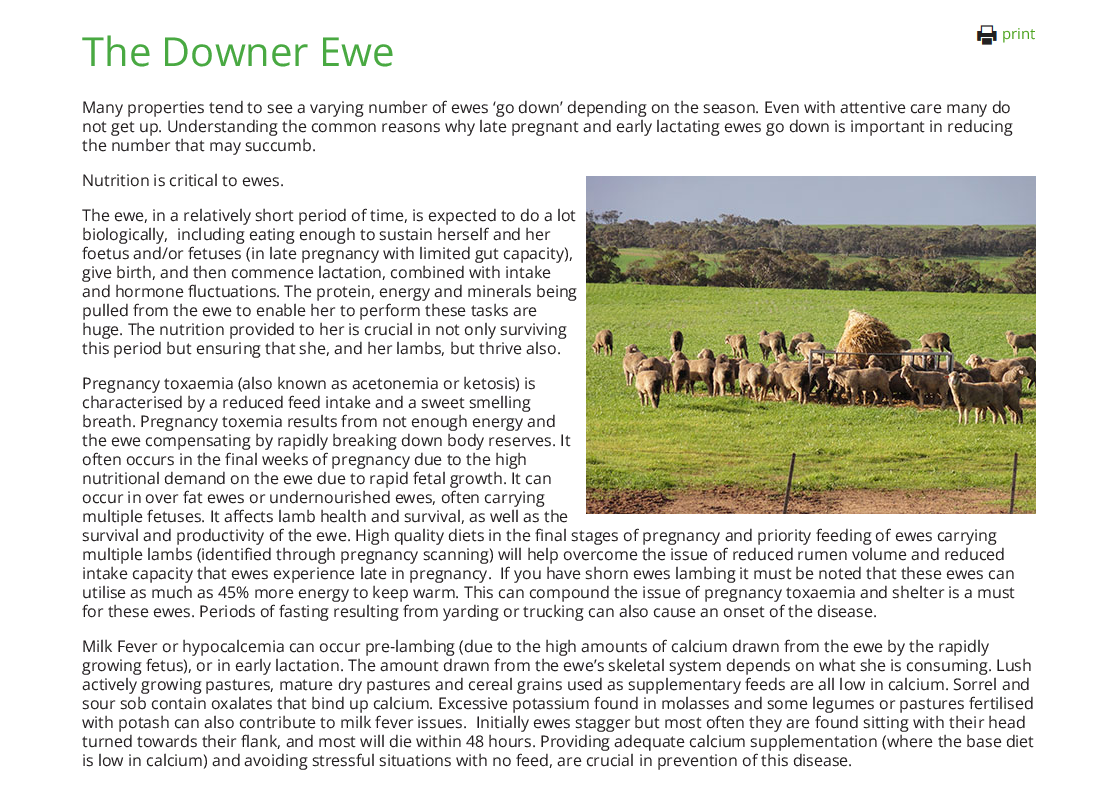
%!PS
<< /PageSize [1117 790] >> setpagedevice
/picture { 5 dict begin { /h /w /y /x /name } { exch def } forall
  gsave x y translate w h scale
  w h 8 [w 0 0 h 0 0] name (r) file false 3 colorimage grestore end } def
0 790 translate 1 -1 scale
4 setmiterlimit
1 setgray
0 0 1117 790 rectfill
/OpenSans-Regular [40 0 0 -40 0 0] selectfont
0.286 0.663 0.259 setrgbcolor
82 66 moveto (The Downer Ewe) show
(img1.rgb) 976 25 21 20 picture
/OpenSans-Regular [15 0 0 -15 0 0] selectfont
0.298 0.639 0.114 setrgbcolor
1002 39 moveto (print) show
/OpenSans-Regular [16 0 0 -16 0 0] selectfont
0.133 0.118 0.122 setrgbcolor
82 113 moveto (Many properties tend to see a varying number of ewes ‘go down’ depending on the season. Even with attentive care many do) show
82 132 moveto (not get up. Understanding the common reasons why late pregnant and early lactating ewes go down is important in reducing) show
82 151 moveto (the number that may succumb.) show
82 186 moveto (Nutrition is critical to ewes.) show
(img2.rgb) 586 176 450 338 picture
82 221 moveto (The ewe, in a relatively short period of time, is expected to do a lot) show
82 240 moveto (biologically,  including eating enough to sustain herself and her) show
82 259 moveto (foetus and/or fetuses \(in late pregnancy with limited gut capacity\),) show
82 278 moveto (give birth, and then commence lactation, combined with intake) show
82 297 moveto (and hormone fluctuations. The protein, energy and minerals being) show
82 316 moveto (pulled from the ewe to enable her to perform these tasks are) show
82 335 moveto (huge. The nutrition provided to her is crucial in not only surviving) show
82 354 moveto (this period but ensuring that she, and her lambs, but thrive also.) show
82 389 moveto (Pregnancy toxaemia \(also known as acetonemia or ketosis\) is) show
82 408 moveto (characterised by a reduced feed intake and a sweet smelling) show
82 427 moveto (breath. Pregnancy toxemia results from not enough energy and) show
82 446 moveto (the ewe compensating by rapidly breaking down body reserves. It) show
82 465 moveto (often occurs in the final weeks of pregnancy due to the high) show
82 484 moveto (nutritional demand on the ewe due to rapid fetal growth. It can) show
82 503 moveto (occur in over fat ewes or undernourished ewes, often carrying) show
82 522 moveto (multiple fetuses. It affects lamb health and survival, as well as the) show
82 541 moveto (survival and productivity of the ewe. High quality diets in the final stages of pregnancy and priority feeding of ewes carrying) show
82 560 moveto (multiple lambs \(identified through pregnancy scanning\) will help overcome the issue of reduced rumen volume and reduced) show
82 579 moveto (intake capacity that ewes experience late in pregnancy.  If you have shorn ewes lambing it must be noted that these ewes can) show
82 598 moveto (utilise as much as 45% more energy to keep warm. This can compound the issue of pregnancy toxaemia and shelter is a must) show
82 617 moveto (for these ewes. Periods of fasting resulting from yarding or trucking can also cause an onset of the disease.) show
82 652 moveto (Milk Fever or hypocalcemia can occur pre-lambing \(due to the high amounts of calcium drawn from the ewe by the rapidly) show
82 671 moveto (growing fetus\), or in early lactation. The amount drawn from the ewe’s skeletal system depends on what she is consuming. Lush) show
82 690 moveto (actively growing pastures, mature dry pastures and cereal grains used as supplementary feeds are all low in calcium. Sorrel and) show
82 709 moveto (sour sob contain oxalates that bind up calcium. Excessive potassium found in molasses and some legumes or pastures fertilised) show
82 728 moveto (with potash can also contribute to milk fever issues.  Initially ewes stagger but most often they are found sitting with their head) show
82 747 moveto (turned towards their flank, and most will die within 48 hours. Providing adequate calcium supplementation \(where the base diet) show
82 766 moveto (is low in calcium\) and avoiding stressful situations with no feed, are crucial in prevention of this disease.) show
showpage
